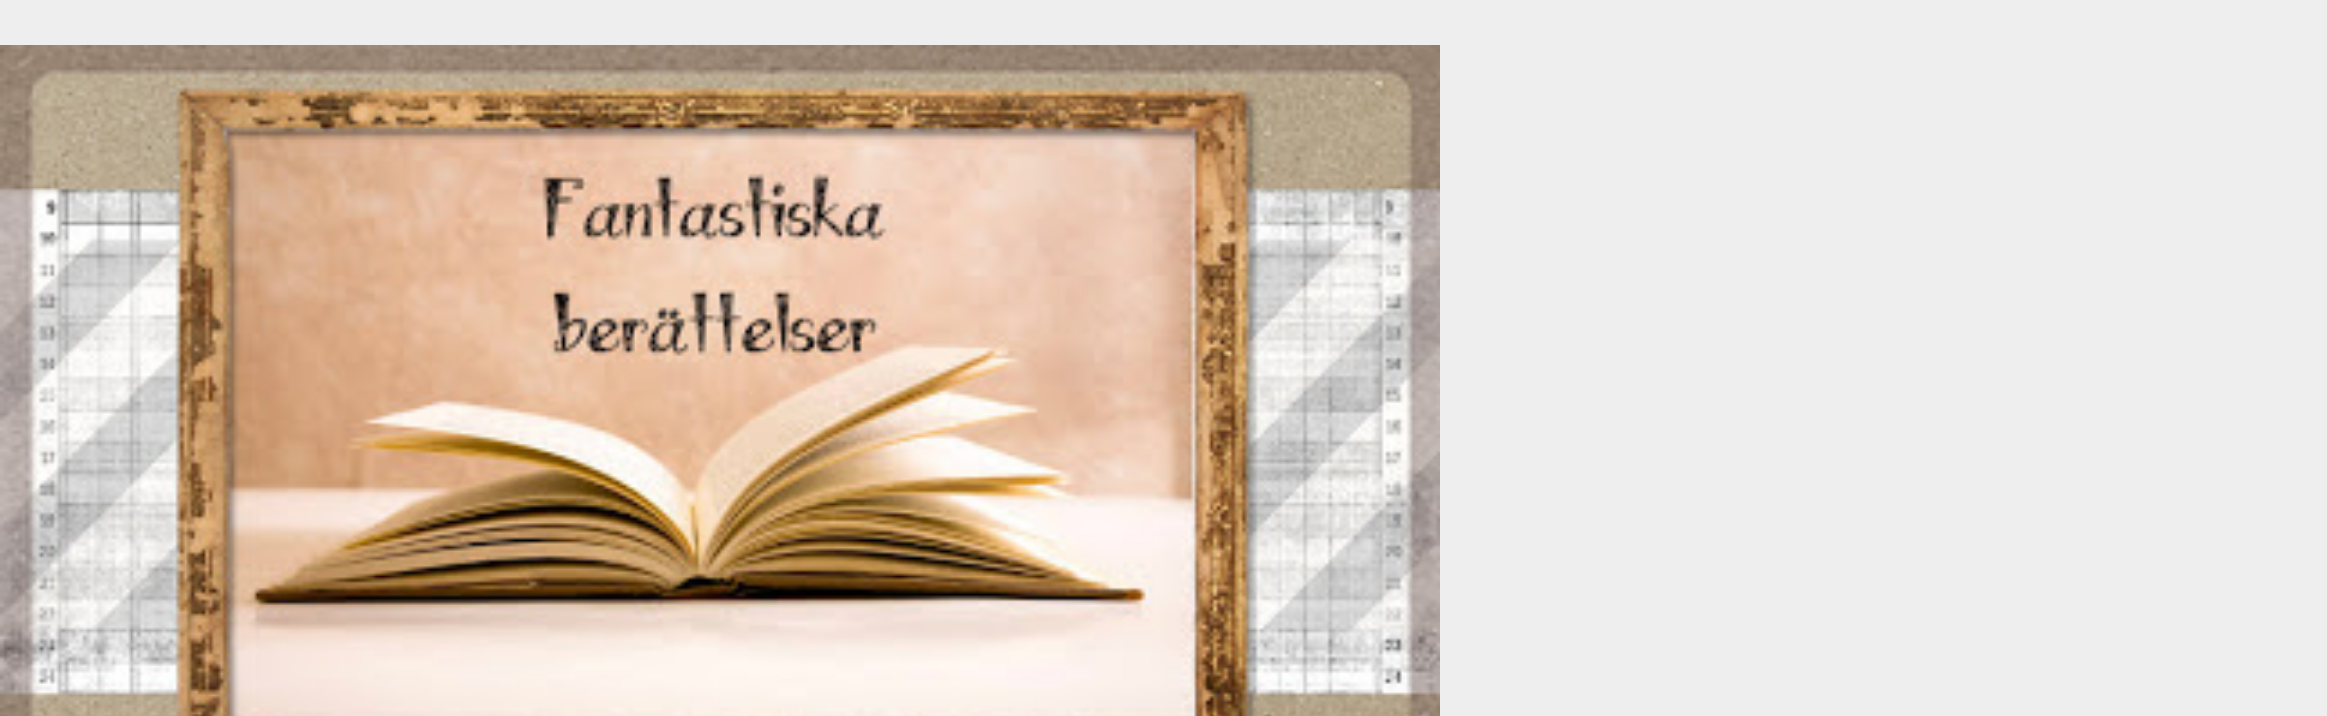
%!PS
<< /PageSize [2327 716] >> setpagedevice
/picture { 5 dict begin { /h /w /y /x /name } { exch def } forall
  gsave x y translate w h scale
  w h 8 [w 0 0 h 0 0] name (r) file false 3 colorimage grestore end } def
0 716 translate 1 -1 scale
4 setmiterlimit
0.933 setgray
0 0 2327 716 rectfill
(img1.rgb) 0 45 1440 671 picture
showpage
